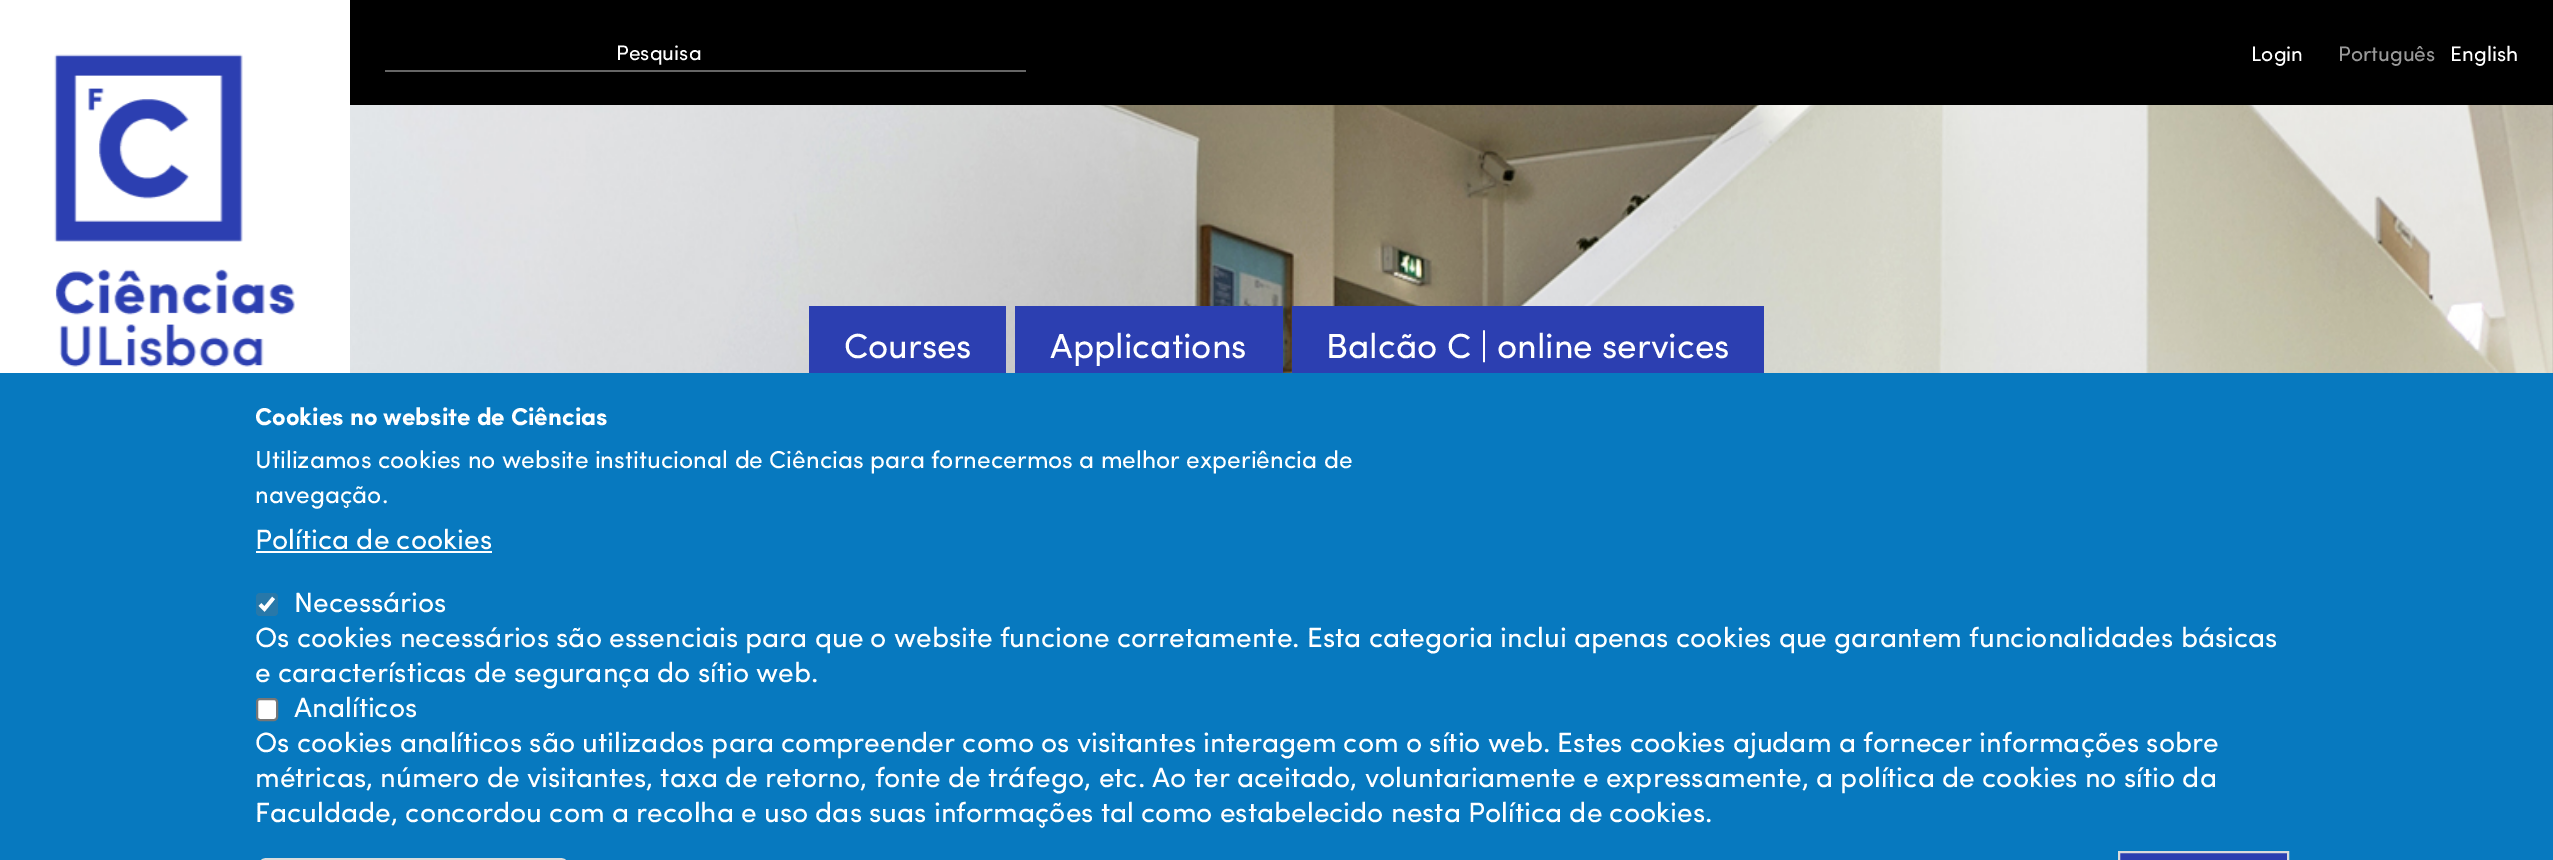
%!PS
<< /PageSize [2553 860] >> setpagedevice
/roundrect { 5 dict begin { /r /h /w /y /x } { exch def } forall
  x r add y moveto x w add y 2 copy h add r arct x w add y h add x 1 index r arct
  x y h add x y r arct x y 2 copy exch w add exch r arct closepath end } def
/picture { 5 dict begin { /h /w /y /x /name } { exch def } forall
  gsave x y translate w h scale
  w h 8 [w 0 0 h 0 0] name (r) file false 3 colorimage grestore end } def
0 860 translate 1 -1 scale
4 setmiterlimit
1 setgray
0 0 2553 860 rectfill
(img1.rgb) 350 105 2203 268 picture
(img2.rgb) 54 54 241 313 picture
0 setgray
350 0 2203 105 rectfill
0.4 setgray
385 70 641 2 rectfill
/Sofia-Regular [21 0 0 -21 0 0] selectfont
1 setgray
616 60 moveto (Pesquisa) show
2251 61 moveto (Login) show
0.6 setgray
2338 61 moveto (Português) show
1 setgray
2450 61 moveto (English) show
0.173 0.247 0.694 setrgbcolor
809 306 197 67 rectfill
/Sofia-Regular [35 0 0 -35 0 0] selectfont
1 setgray
844 358 moveto (Courses) show
0.173 0.247 0.694 setrgbcolor
1015 306 268 67 rectfill
1 setgray
1050 358 moveto (Applications) show
0.173 0.247 0.694 setrgbcolor
1292 306 472 67 rectfill
1 setgray
1326 358 moveto (Balcão C | online services) show
0.027 0.475 0.749 setrgbcolor
0 373 2553 487 rectfill
/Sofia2-Regular [24.5 0 0 -24.5 0 0] selectfont
1 setgray
255 425 moveto (Cookies no website de Ciências) show
/Sofia-Regular [24.5 0 0 -24.5 0 0] selectfont
255 468 moveto (Utilizamos cookies no website institucional de Ciências para fornecermos a melhor experiência de) show
255 503 moveto (navegação.) show
/Sofia-Regular [28 0 0 -28 0 0] selectfont
255 549 moveto (Política de cookies) show
256 551 236 2 rectfill
0.157 0.471 0.663 setrgbcolor
256 593 22 23 4 roundrect fill
1 setgray
3.6 setlinewidth
newpath 260 604.5 moveto 264.5 609 lineto 273.5 598 lineto stroke
294 612 moveto (Necessários) show
255 647 moveto (Os cookies necessários são essenciais para que o website funcione corretamente. Esta categoria inclui apenas cookies que garantem funcionalidades básicas) show
255 682 moveto (e características de segurança do sítio web.) show
257 699 20 21 3 roundrect gsave fill grestore
0.463 setgray
2 setlinewidth
stroke
1 setgray
294 717 moveto (Analíticos) show
255 752 moveto (Os cookies analíticos são utilizados para compreender como os visitantes interagem com o sítio web. Estes cookies ajudam a fornecer informações sobre) show
255 787 moveto (métricas, número de visitantes, taxa de retorno, fonte de tráfego, etc. Ao ter aceitado, voluntariamente e expressamente, a política de cookies no sítio da) show
255 822 moveto (Faculdade, concordou com a recolha e uso das suas informações tal como estabelecido nesta Política de cookies.) show
0.863 setgray
257 859 313 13 10 roundrect stroke
0.173 0.247 0.694 setrgbcolor
newpath 2119 852 moveto 2288 852 lineto 2288 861 lineto 2119 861 lineto closepath gsave fill grestore
0.863 setgray
stroke
showpage
